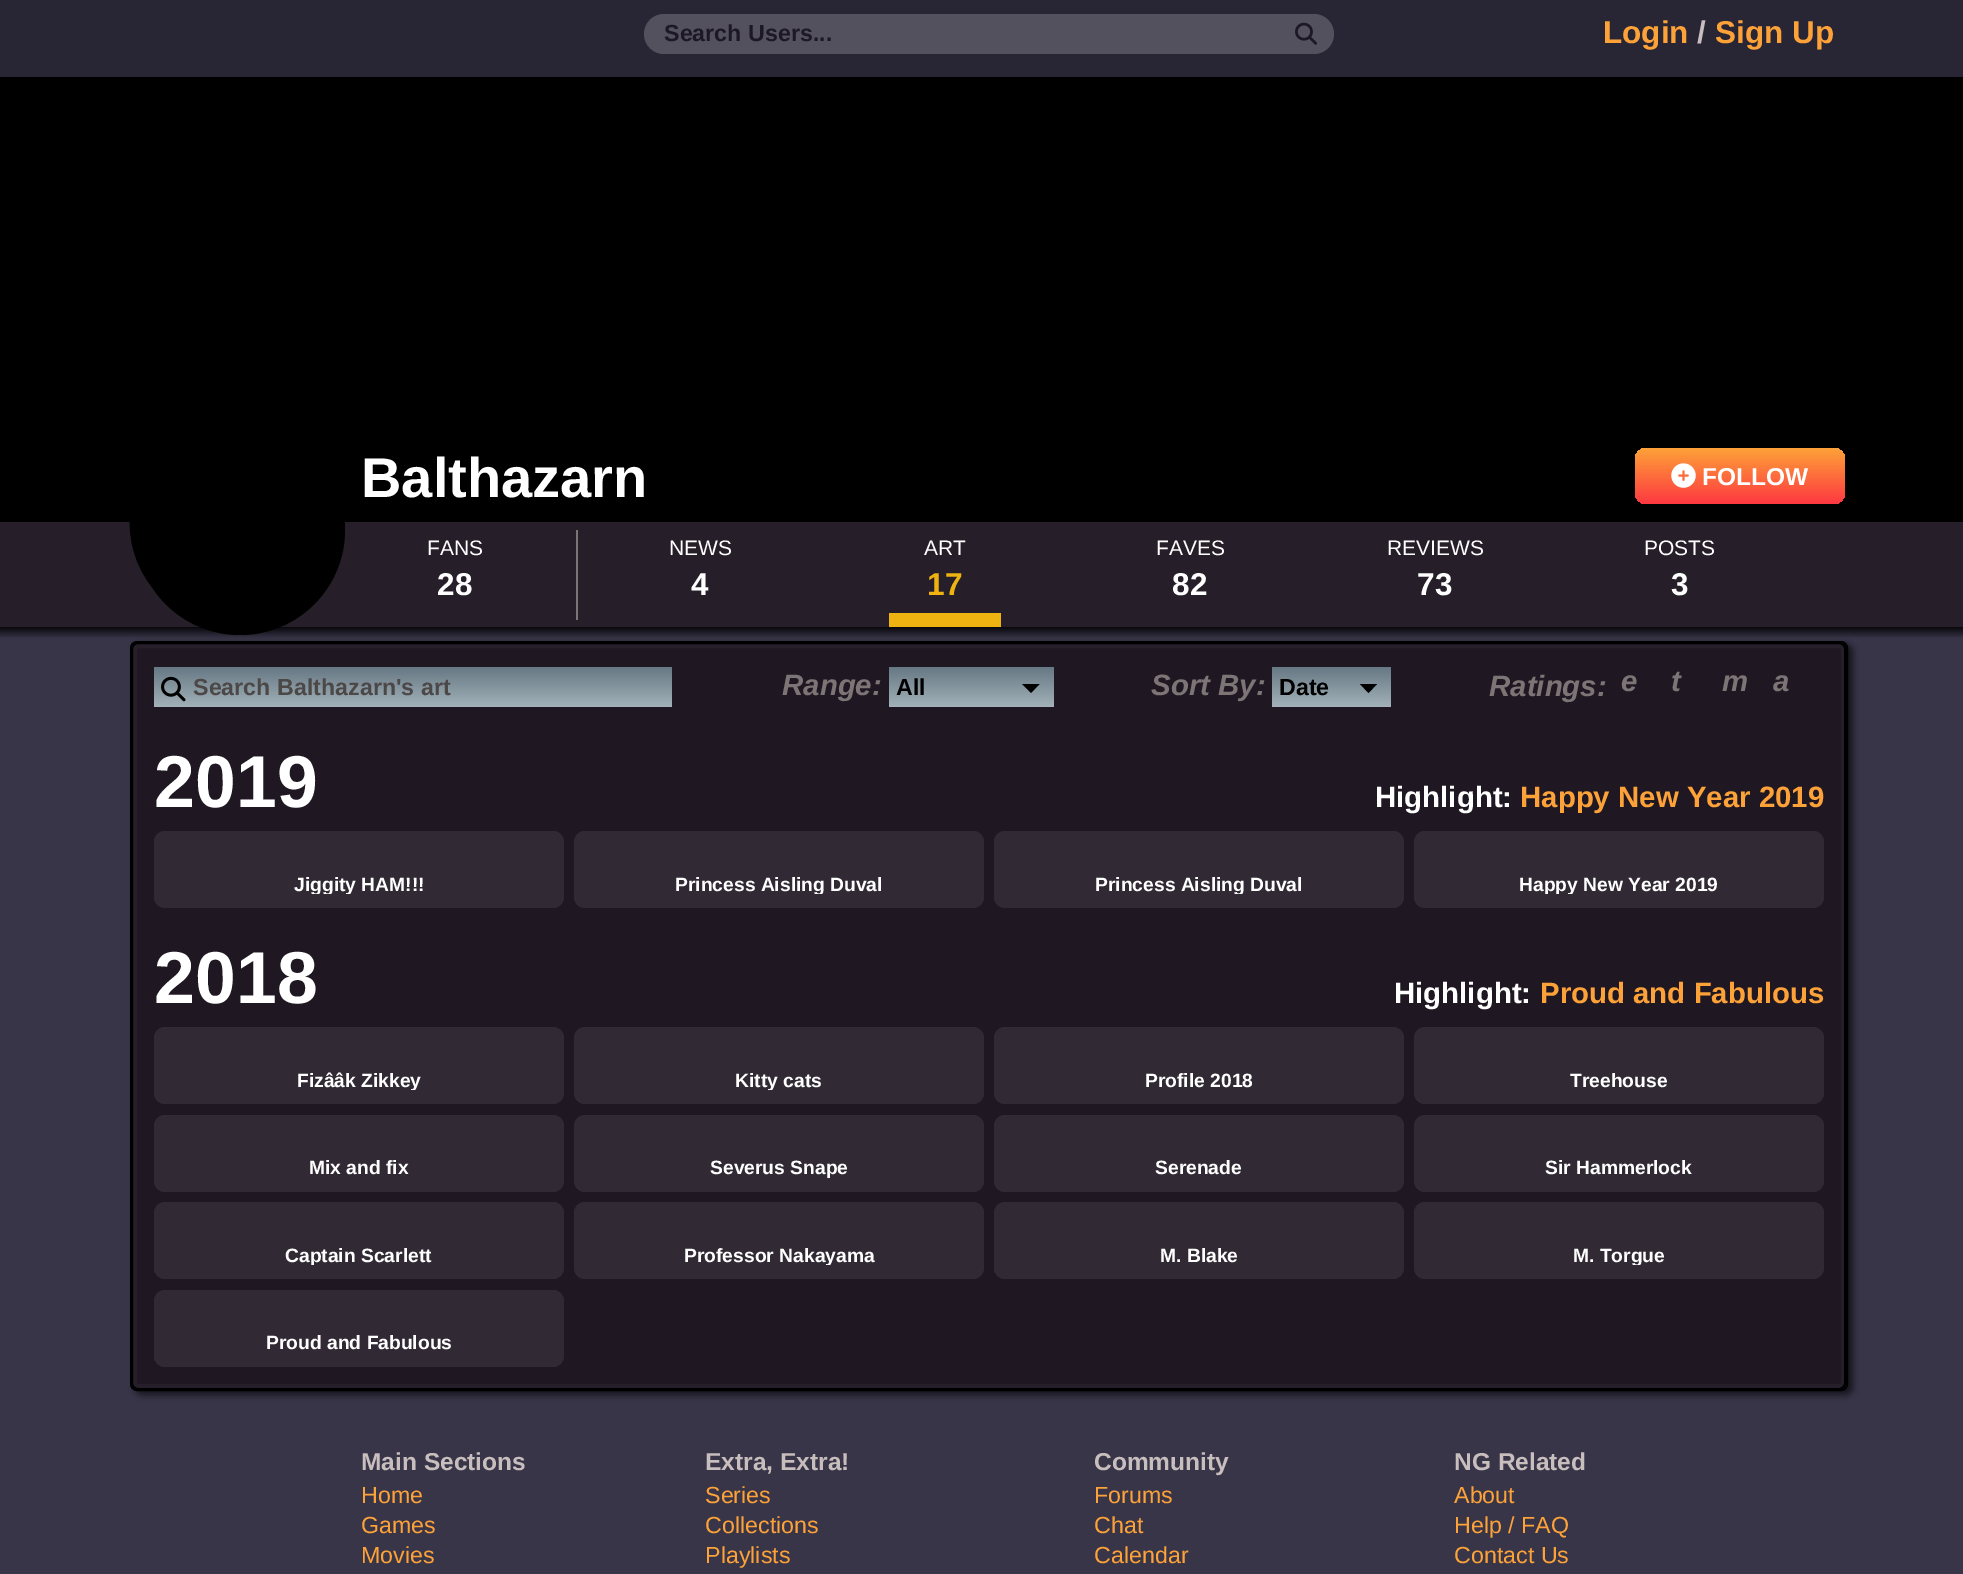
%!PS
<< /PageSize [1963 1574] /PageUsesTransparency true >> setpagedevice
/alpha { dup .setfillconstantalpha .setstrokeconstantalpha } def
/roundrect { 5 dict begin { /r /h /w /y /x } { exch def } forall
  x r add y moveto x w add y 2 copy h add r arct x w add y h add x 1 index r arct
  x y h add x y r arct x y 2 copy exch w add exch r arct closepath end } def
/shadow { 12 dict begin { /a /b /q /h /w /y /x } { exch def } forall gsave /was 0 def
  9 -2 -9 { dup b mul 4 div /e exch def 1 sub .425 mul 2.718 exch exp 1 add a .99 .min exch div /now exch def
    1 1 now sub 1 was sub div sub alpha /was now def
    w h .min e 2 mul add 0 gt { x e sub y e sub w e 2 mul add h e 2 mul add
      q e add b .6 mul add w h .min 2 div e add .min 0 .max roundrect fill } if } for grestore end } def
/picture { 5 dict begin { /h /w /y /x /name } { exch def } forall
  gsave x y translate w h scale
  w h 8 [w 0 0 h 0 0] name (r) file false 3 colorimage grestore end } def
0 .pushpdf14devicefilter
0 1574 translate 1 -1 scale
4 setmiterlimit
0 setgray
0 0 1963 1574 rectfill
0.157 0.145 0.204 setrgbcolor
0 0 1963 77 rectfill
0.325 0.318 0.365 setrgbcolor
644 14 690 40 20 roundrect fill
/LiberationSans-Bold [23.25 0 0 -23.25 0 0] selectfont
0.11 0.094 0.141 setrgbcolor
664 41 moveto (Search Users...) show
(img1.rgb) 1295 22 22 23 picture
/LiberationSans-Bold [31.5 0 0 -31.5 0 0] selectfont
0.992 0.635 0.22 setrgbcolor
1603 43 moveto (Login) show
0.788 0.745 0.745 setrgbcolor
1697 43 moveto (/) show
0.992 0.635 0.22 setrgbcolor
1715 43 moveto (Sign Up) show
0.149 0.118 0.161 setrgbcolor
0 522 1963 105 rectfill
gsave newpath 0 627 moveto 1963 627 lineto 1963 1574 lineto 0 1574 lineto closepath clip newpath
<< /ShadingType 2 /ColorSpace /DeviceRGB /Coords [982 625 982 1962] /Extend [true true] /Function << /FunctionType 3 /Domain [0 1] /Functions [<< /FunctionType 2 /Domain [0 1] /C0 [0 0 0] /C1 [0.22 0.208 0.286] /N 1 >> << /FunctionType 2 /Domain [0 1] /C0 [0.22 0.208 0.286] /C1 [0.22 0.208 0.286] /N 1 >>] /Bounds [0.01] /Encode [0 1 0 1] >> >> shfill grestore
0 setgray
135 644 1718 751 7 3.5 0.6 shadow
newpath 240 530 105 0 360 arc closepath fill
(img2.rgb) 129 522 26 69 picture
/LiberationSans-Bold [56 0 0 -56 0 0] selectfont
1 setgray
361 497 moveto (Balthazarn) show
gsave 1635 448 210 56 11 roundrect clip newpath
<< /ShadingType 2 /ColorSpace /DeviceRGB /Coords [1740 448 1740 504] /Extend [true true] /Function << /FunctionType 2 /Domain [0 1] /C0 [0.992 0.635 0.22] /C1 [0.992 0.22 0.255] /N 1 >> >> shfill grestore
(img3.rgb) 1671 463 25 25 picture
/LiberationSans-Bold [24.5 0 0 -24.5 0 0] selectfont
1702 485 moveto (FOLLOW) show
/LiberationSans-Regular [21 0 0 -21 0 0] selectfont
427 555 moveto (FANS) show
/LiberationSans-Bold [31.5 0 0 -31.5 0 0] selectfont
437 595 moveto (28) show
0.49 0.459 0.459 setrgbcolor
576 530 2 90 rectfill
/LiberationSans-Regular [21 0 0 -21 0 0] selectfont
1 setgray
669 555 moveto (NEWS) show
/LiberationSans-Bold [31.5 0 0 -31.5 0 0] selectfont
691 595 moveto (4) show
/LiberationSans-Regular [21 0 0 -21 0 0] selectfont
924 555 moveto (ART) show
/LiberationSans-Bold [31.5 0 0 -31.5 0 0] selectfont
0.933 0.698 0.067 setrgbcolor
927 595 moveto (17) show
889 613 112 14 rectfill
/LiberationSans-Regular [21 0 0 -21 0 0] selectfont
1 setgray
1156 555 moveto (FAVES) show
/LiberationSans-Bold [31.5 0 0 -31.5 0 0] selectfont
1172 595 moveto (82) show
/LiberationSans-Regular [21 0 0 -21 0 0] selectfont
1387 555 moveto (REVIEWS) show
/LiberationSans-Bold [31.5 0 0 -31.5 0 0] selectfont
1417 595 moveto (73) show
/LiberationSans-Regular [21 0 0 -21 0 0] selectfont
1644 555 moveto (POSTS) show
/LiberationSans-Bold [31.5 0 0 -31.5 0 0] selectfont
1671 595 moveto (3) show
0 setgray
2 setlinewidth
131 642 1716 748 6 roundrect stroke
0.122 0.09 0.133 setrgbcolor
131 642 1715 748 7 roundrect fill
0.149 0.118 0.161 setrgbcolor
4 setlinewidth
135 646 1708 740 3 roundrect stroke
0 setgray
2 setlinewidth
132 643 1713 746 6 roundrect stroke
gsave newpath 154 667 moveto 672 667 lineto 672 707 lineto 154 707 lineto closepath clip newpath
<< /ShadingType 2 /ColorSpace /DeviceRGB /Coords [413 667 413 707] /Extend [true true] /Function << /FunctionType 2 /Domain [0 1] /C0 [0.4 0.471 0.518] /C1 [0.639 0.698 0.725] /N 1 >> >> shfill grestore
(img4.rgb) 161 676 25 26 picture
/LiberationSans-Bold [23.25 0 0 -23.25 0 0] selectfont
0.298 0.282 0.282 setrgbcolor
193 695 moveto (Search Balthazarn's art) show
/LiberationSans-BoldItalic [29.4 0 0 -29.4 0 0] selectfont
0.49 0.459 0.459 setrgbcolor
782 695 moveto (Range:) show
gsave newpath 889 667 moveto 1054 667 lineto 1054 707 lineto 889 707 lineto closepath clip newpath
<< /ShadingType 2 /ColorSpace /DeviceRGB /Coords [971 667 971 707] /Extend [true true] /Function << /FunctionType 2 /Domain [0 1] /C0 [0.4 0.471 0.518] /C1 [0.639 0.698 0.725] /N 1 >> >> shfill grestore
/LiberationSans-Bold [23.25 0 0 -23.25 0 0] selectfont
0 setgray
896 695 moveto (All) show
newpath 1022 684 moveto 1039.5 684 lineto 1031 693 lineto closepath fill
/LiberationSans-BoldItalic [29.4 0 0 -29.4 0 0] selectfont
0.49 0.459 0.459 setrgbcolor
1151 695 moveto (Sort By:) show
gsave newpath 1272 667 moveto 1391 667 lineto 1391 707 lineto 1272 707 lineto closepath clip newpath
<< /ShadingType 2 /ColorSpace /DeviceRGB /Coords [1332 667 1332 707] /Extend [true true] /Function << /FunctionType 2 /Domain [0 1] /C0 [0.4 0.471 0.518] /C1 [0.639 0.698 0.725] /N 1 >> >> shfill grestore
/LiberationSans-Bold [23.25 0 0 -23.25 0 0] selectfont
0 setgray
1279 695 moveto (Date) show
newpath 1360 684 moveto 1377 684 lineto 1368.5 693 lineto closepath fill
/LiberationSans-BoldItalic [29.4 0 0 -29.4 0 0] selectfont
0.49 0.459 0.459 setrgbcolor
1489 696 moveto (Ratings:) show
1621 691 moveto (e) show
1671 691 moveto (t) show
1722 691 moveto (m) show
1773 691 moveto (a) show
/LiberationSans-Bold [73.5 0 0 -73.5 0 0] selectfont
1 setgray
154 807 moveto (2019) show
/LiberationSans-Bold [29.4 0 0 -29.4 0 0] selectfont
1375 807 moveto (Highlight:) show
0.992 0.635 0.22 setrgbcolor
1520 807 moveto (Happy New Year 2019) show
0.192 0.165 0.204 setrgbcolor
154 831 410 77 11 roundrect fill
gsave
172 873 374 21 rectclip
/LiberationSans-Bold [19.25 0 0 -19.25 0 0] selectfont
1 setgray
294 891 moveto (Jiggity HAM!!!) show
grestore
574 831 410 77 11 roundrect fill
gsave
592 873 374 21 rectclip
/LiberationSans-Bold [19.25 0 0 -19.25 0 0] selectfont
1 setgray
675 891 moveto (Princess Aisling Duval) show
grestore
994 831 410 77 11 roundrect fill
gsave
1012 873 374 21 rectclip
/LiberationSans-Bold [19.25 0 0 -19.25 0 0] selectfont
1 setgray
1095 891 moveto (Princess Aisling Duval) show
grestore
1414 831 410 77 11 roundrect fill
gsave
1432 873 374 21 rectclip
/LiberationSans-Bold [19.25 0 0 -19.25 0 0] selectfont
1 setgray
1519 891 moveto (Happy New Year 2019) show
grestore
/LiberationSans-Bold [73.5 0 0 -73.5 0 0] selectfont
1 setgray
154 1003 moveto (2018) show
/LiberationSans-Bold [29.4 0 0 -29.4 0 0] selectfont
1394 1003 moveto (Highlight:) show
0.992 0.635 0.22 setrgbcolor
1540 1003 moveto (Proud and Fabulous) show
0.192 0.165 0.204 setrgbcolor
154 1027 410 77 11 roundrect fill
gsave
172 1069 374 21 rectclip
/LiberationSans-Bold [19.25 0 0 -19.25 0 0] selectfont
1 setgray
297 1087 moveto (Fizââk Zikkey) show
grestore
574 1027 410 77 11 roundrect fill
gsave
592 1069 374 21 rectclip
/LiberationSans-Bold [19.25 0 0 -19.25 0 0] selectfont
1 setgray
735 1087 moveto (Kitty cats) show
grestore
994 1027 410 77 11 roundrect fill
/LiberationSans-Bold [19.25 0 0 -19.25 0 0] selectfont
1 setgray
1145 1087 moveto (Profile 2018) show
0.192 0.165 0.204 setrgbcolor
1414 1027 410 77 11 roundrect fill
1 setgray
1570 1087 moveto (Treehouse) show
0.192 0.165 0.204 setrgbcolor
154 1115 410 77 11 roundrect fill
1 setgray
309 1174 moveto (Mix and fix) show
0.192 0.165 0.204 setrgbcolor
574 1115 410 77 11 roundrect fill
1 setgray
710 1174 moveto (Severus Snape) show
0.192 0.165 0.204 setrgbcolor
994 1115 410 77 11 roundrect fill
1 setgray
1155 1174 moveto (Serenade) show
0.192 0.165 0.204 setrgbcolor
1414 1115 410 77 11 roundrect fill
1 setgray
1545 1174 moveto (Sir Hammerlock) show
0.192 0.165 0.204 setrgbcolor
154 1202 410 77 11 roundrect fill
gsave
172 1244 374 21 rectclip
1 setgray
285 1262 moveto (Captain Scarlett) show
grestore
574 1202 410 77 11 roundrect fill
gsave
592 1244 374 21 rectclip
1 setgray
684 1262 moveto (Professor Nakayama) show
grestore
994 1202 410 77 11 roundrect fill
1 setgray
1160 1262 moveto (M. Blake) show
0.192 0.165 0.204 setrgbcolor
1414 1202 410 77 11 roundrect fill
gsave
1432 1244 374 21 rectclip
1 setgray
1573 1262 moveto (M. Torgue) show
grestore
154 1290 410 77 11 roundrect fill
1 setgray
266 1349 moveto (Proud and Fabulous) show
/LiberationSans-Bold [24.5 0 0 -24.5 0 0] selectfont
0.788 0.745 0.745 setrgbcolor
361 1470 moveto (Main Sections) show
/LiberationSans-Regular [23.25 0 0 -23.25 0 0] selectfont
0.992 0.635 0.22 setrgbcolor
361 1503 moveto (Home) show
361 1533 moveto (Games) show
361 1563 moveto (Movies) show
/LiberationSans-Bold [24.5 0 0 -24.5 0 0] selectfont
0.788 0.745 0.745 setrgbcolor
705 1470 moveto (Extra, Extra!) show
/LiberationSans-Regular [23.25 0 0 -23.25 0 0] selectfont
0.992 0.635 0.22 setrgbcolor
705 1503 moveto (Series) show
705 1533 moveto (Collections) show
705 1563 moveto (Playlists) show
/LiberationSans-Bold [24.5 0 0 -24.5 0 0] selectfont
0.788 0.745 0.745 setrgbcolor
1094 1470 moveto (Community) show
/LiberationSans-Regular [23.25 0 0 -23.25 0 0] selectfont
0.992 0.635 0.22 setrgbcolor
1094 1503 moveto (Forums) show
1094 1533 moveto (Chat) show
1094 1563 moveto (Calendar) show
/LiberationSans-Bold [24.5 0 0 -24.5 0 0] selectfont
0.788 0.745 0.745 setrgbcolor
1454 1470 moveto (NG Related) show
/LiberationSans-Regular [23.25 0 0 -23.25 0 0] selectfont
0.992 0.635 0.22 setrgbcolor
1454 1503 moveto (About) show
1454 1533 moveto (Help / FAQ) show
1454 1563 moveto (Contact Us) show
.poppdf14devicefilter showpage
